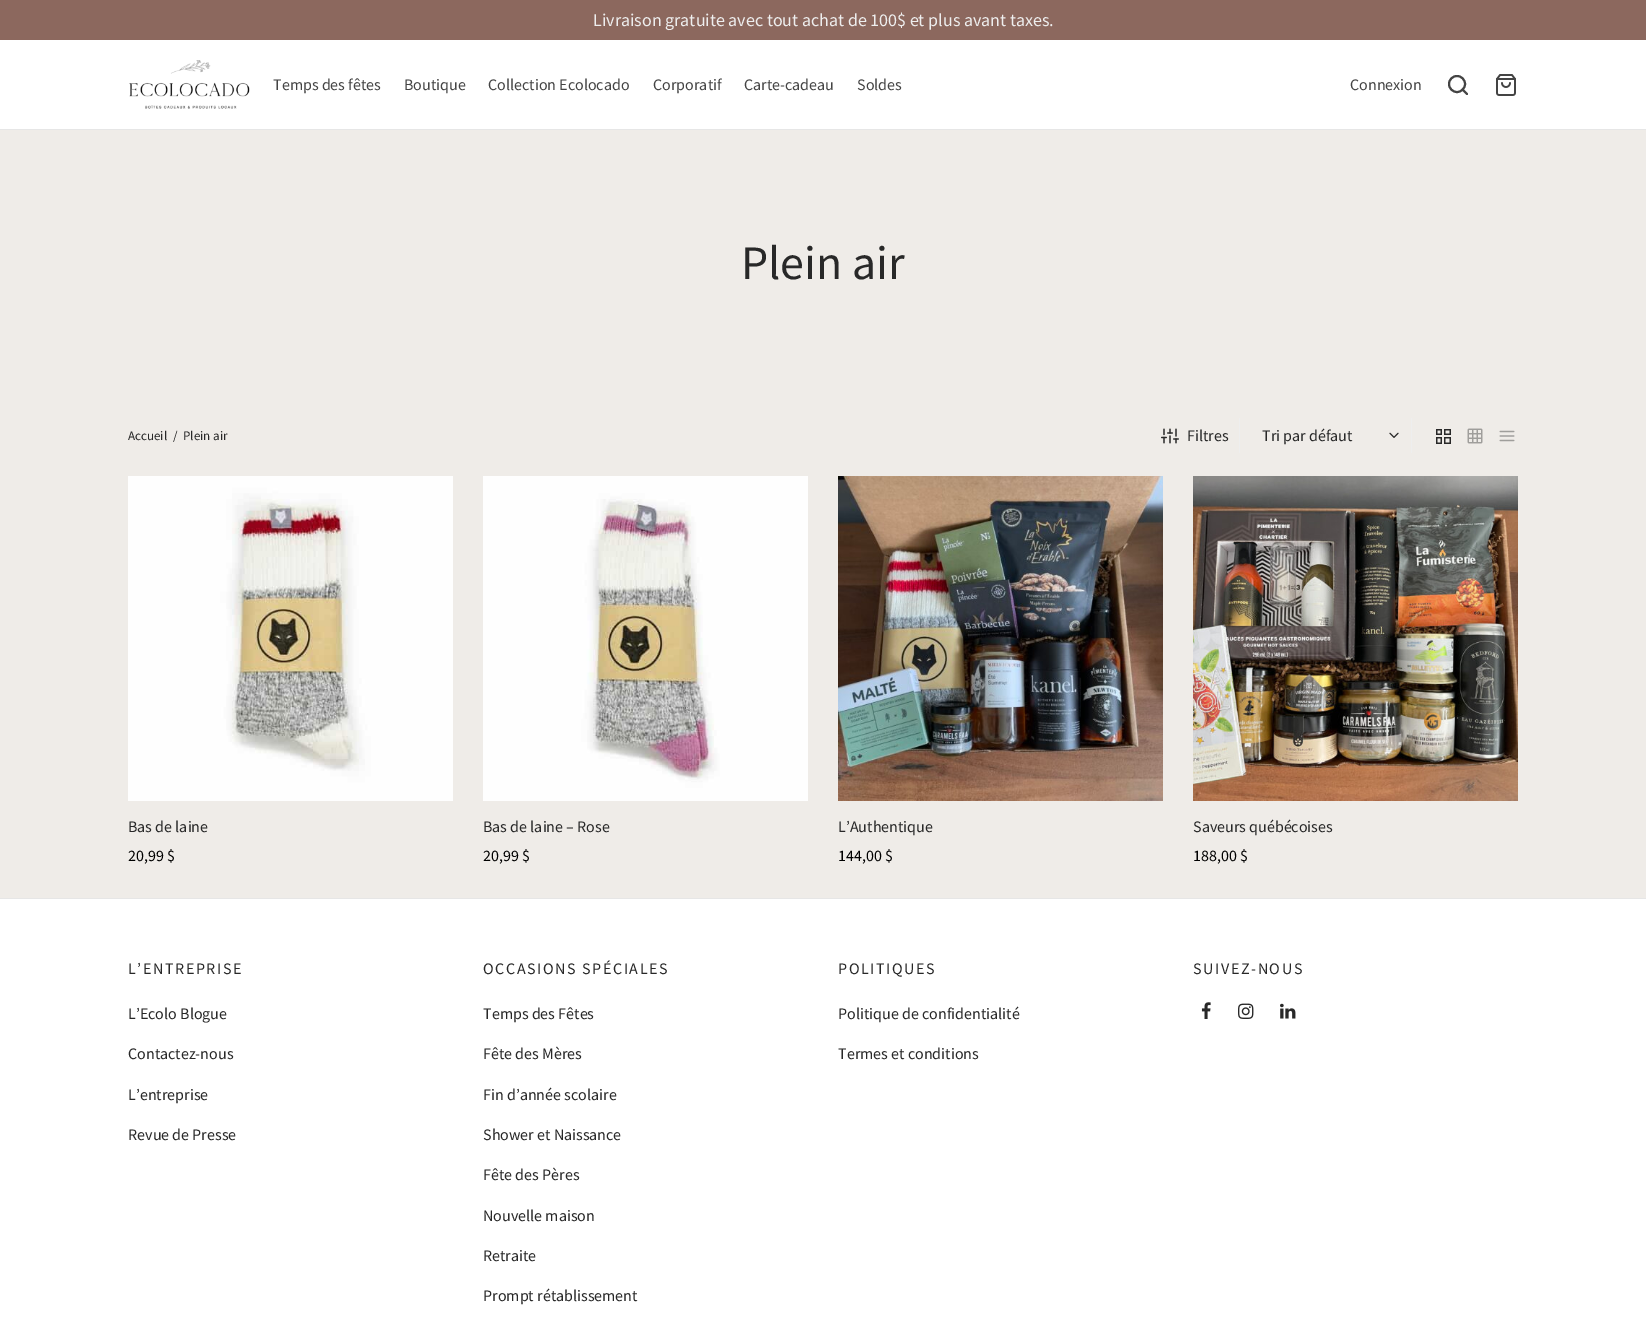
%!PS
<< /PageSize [1646 1338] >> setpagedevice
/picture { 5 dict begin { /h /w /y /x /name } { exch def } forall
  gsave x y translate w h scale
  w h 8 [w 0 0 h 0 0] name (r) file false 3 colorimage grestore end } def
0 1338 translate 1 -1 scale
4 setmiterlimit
0.937 0.925 0.91 setrgbcolor
0 0 1646 1338 rectfill
0.549 0.408 0.369 setrgbcolor
0 0 1646 40 rectfill
/SourceSansPro-Regular [18 0 0 -18 0 0] selectfont
0.933 setgray
593 26 moveto (Livraison gratuite avec tout achat de 100$ et plus avant taxes.) show
1 setgray
0 40 1646 89 rectfill
(img1.rgb) 129 60 121 49 picture
/SourceSansPro-Regular [16 0 0 -16 0 0] selectfont
0.267 setgray
273 90 moveto (Temps des fêtes) show
404 90 moveto (Boutique) show
488 90 moveto (Collection Ecolocado) show
653 90 moveto (Corporatif) show
744 90 moveto (Carte-cadeau) show
857 90 moveto (Soldes) show
1350 90 moveto (Connexion) show
2 setlinewidth
newpath 1457 84 8 0 360 arc closepath stroke
1 setlinecap
1 setlinejoin
newpath 1467 94 moveto 1462.5 89.5 lineto stroke
(img2.rgb) 1496 74 20 22 picture
0.902 setgray
0 129 1646 1 rectfill
/SourceSansPro-Regular [48 0 0 -48 0 0] selectfont
0.157 setgray
741 279 moveto (Plein air) show
/SourceSansPro-Regular [13 0 0 -13 0 0] selectfont
128 440 moveto (Accueil) show
173 440 moveto (/) show
183 440 moveto (Plein air) show
0.933 setgray
1239 418 1 35 rectfill
(img3.rgb) 1161 428 18 16 picture
/SourceSansPro-Regular [16 0 0 -16 0 0] selectfont
0.157 setgray
1187 441 moveto (Filtres) show
1262 441 moveto (Tri par défaut) show
(img4.rgb) 1389 432 10 6 picture
0.933 setgray
1411 418 1 35 rectfill
(img5.rgb) 1436 429 15 15 picture
(img6.rgb) 1467 428 16 16 picture
(img7.rgb) 1499 430 16 12 picture
(img8.rgb) 128 476 325 325 picture
0.157 setgray
128 832 moveto (Bas de laine) show
0 setgray
128 861 moveto (20,99 $) show
(img9.rgb) 483 476 325 325 picture
0.157 setgray
483 832 moveto (Bas de laine – Rose) show
0 setgray
483 861 moveto (20,99 $) show
(img10.rgb) 838 476 325 325 picture
0.157 setgray
838 832 moveto (L’Authentique) show
0 setgray
838 861 moveto (144,00 $) show
(img11.rgb) 1193 476 325 325 picture
0.157 setgray
1193 832 moveto (Saveurs québécoises) show
0 setgray
1193 861 moveto (188,00 $) show
1 setgray
0 899 1646 439 rectfill
0.902 setgray
0 898 1646 1 rectfill
0.157 setgray
128 974 moveto 1.6 0 (L’ENTREPRISE) ashow
128 1019 moveto (L’Ecolo Blogue) show
128 1059 moveto (Contactez-nous) show
128 1100 moveto (L’entreprise) show
128 1140 moveto (Revue de Presse) show
483 974 moveto 1.6 0 (OCCASIONS SPÉCIALES) ashow
483 1019 moveto (Temps des Fêtes) show
483 1059 moveto (Fête des Mères) show
483 1100 moveto (Fin d’année scolaire) show
483 1140 moveto (Shower et Naissance) show
483 1180 moveto (Fête des Pères) show
483 1221 moveto (Nouvelle maison) show
483 1261 moveto (Retraite) show
483 1301 moveto (Prompt rétablissement) show
838 974 moveto 1.6 0 (POLITIQUES) ashow
838 1019 moveto (Politique de confidentialité) show
838 1059 moveto (Termes et conditions) show
1193 974 moveto 1.6 0 (SUIVEZ-NOUS) ashow
(img12.rgb) 1201 1002 10 17 picture
(img13.rgb) 1238 1003 16 16 picture
(img14.rgb) 1280 1003 16 16 picture
showpage
